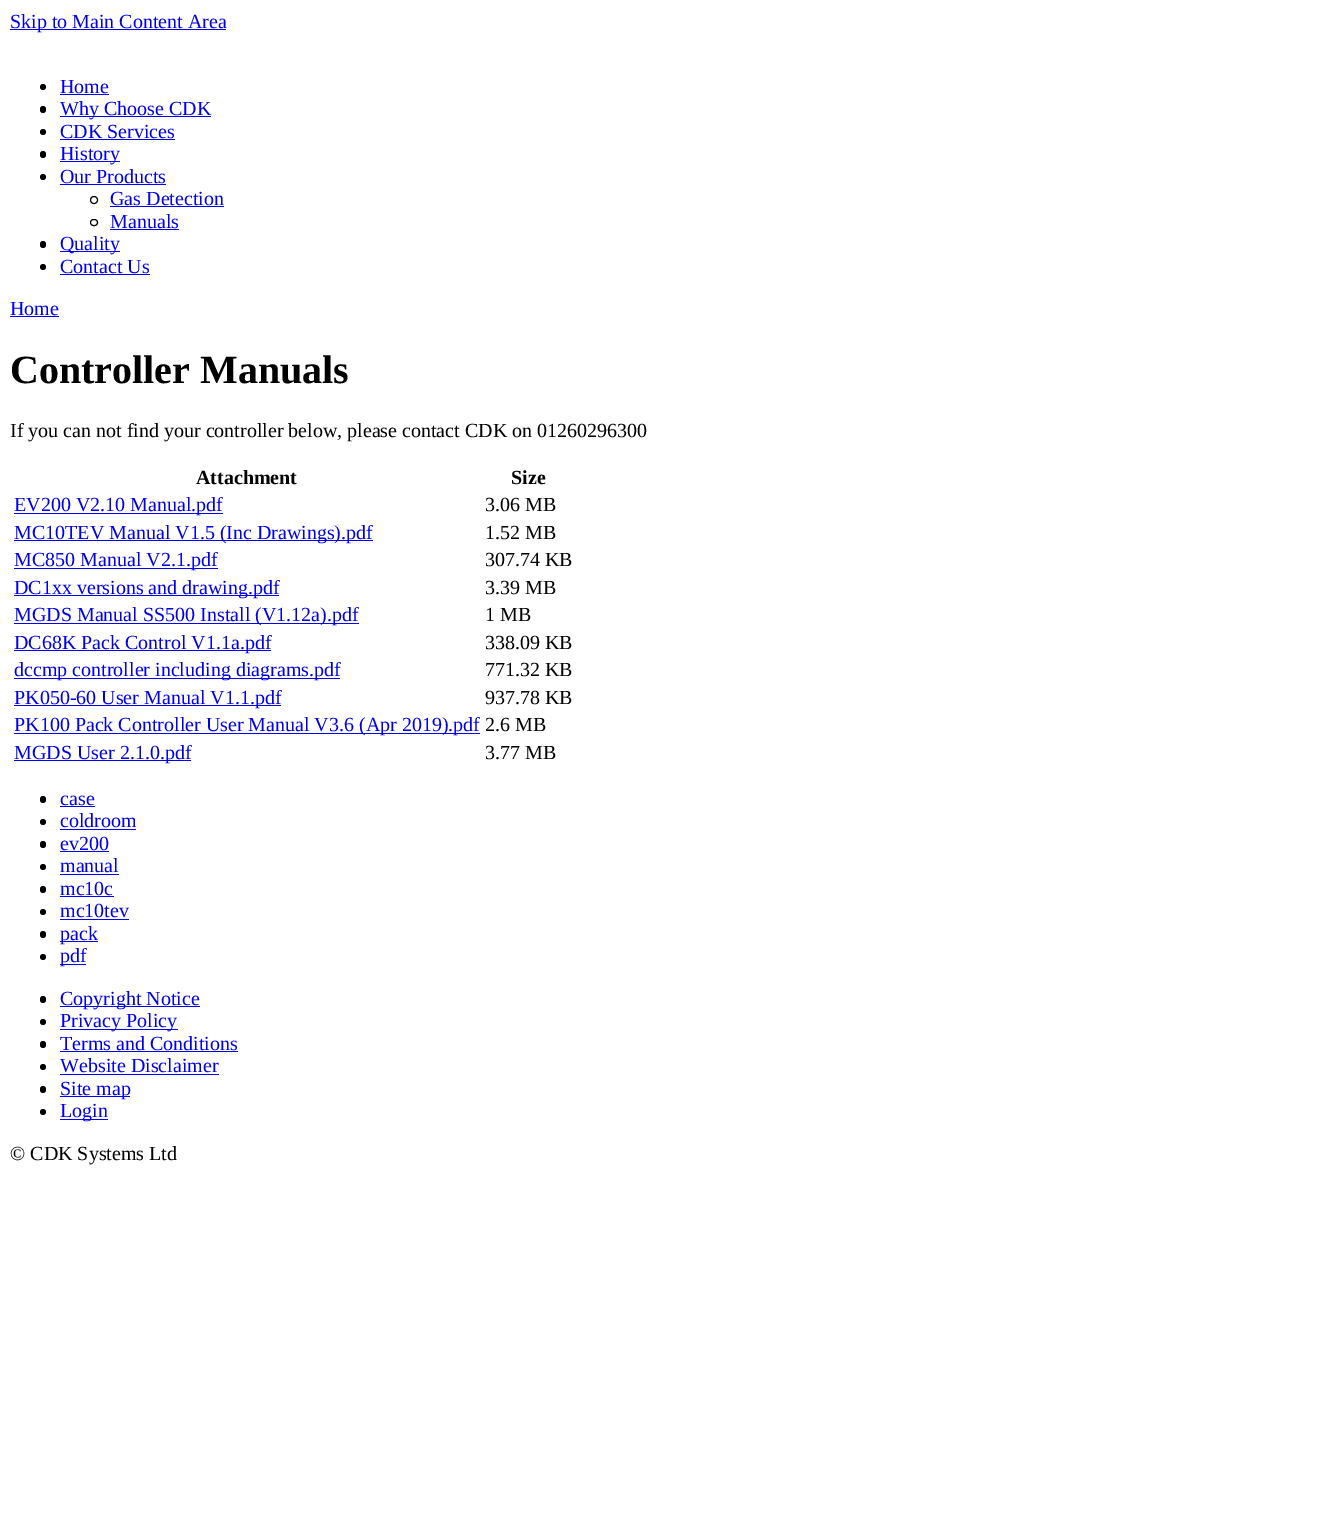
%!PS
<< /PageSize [1317 1525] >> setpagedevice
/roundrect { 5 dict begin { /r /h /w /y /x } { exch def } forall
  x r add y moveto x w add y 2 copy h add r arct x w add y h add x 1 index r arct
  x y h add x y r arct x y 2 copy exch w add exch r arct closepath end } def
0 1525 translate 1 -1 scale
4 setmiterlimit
1 setgray
0 0 1317 1525 rectfill
0 0 0.933 setrgbcolor
10 29 216 1 rectfill
/LiberationSerif-Regular [20 0 0 -20 0 0] selectfont
10 28 moveto (Skip to Main Content Area) show
0 setgray
newpath 43 87 3 0 360 arc closepath fill
0 0 0.933 setrgbcolor
60 93 moveto (Home) show
60 94 49 1 rectfill
0 setgray
40 106 6 7 3 roundrect fill
0 0 0.933 setrgbcolor
60 116 151 1 rectfill
60 115 moveto (Why Choose CDK) show
0 setgray
newpath 43 132 3 0 360 arc closepath fill
0 0 0.933 setrgbcolor
60 138 moveto (CDK Services) show
60 139 115 1 rectfill
0 setgray
40 151 6 7 3 roundrect fill
0 0 0.933 setrgbcolor
60 161 60 1 rectfill
60 160 moveto (History) show
0 setgray
newpath 43 177 3 0 360 arc closepath fill
0 0 0.933 setrgbcolor
60 183 moveto (Our Products) show
60 184 106 1 rectfill
0 setgray
newpath 94 200 3.5 0 360 arc closepath stroke
0 0 0.933 setrgbcolor
110 205 moveto (Gas Detection) show
110 206 114 1 rectfill
0 setgray
90.5 219.5 7 6 3 roundrect stroke
0 0 0.933 setrgbcolor
110 228 moveto (Manuals) show
110 229 69 1 rectfill
0 setgray
40 241 6 7 3 roundrect fill
0 0 0.933 setrgbcolor
60 251 60 1 rectfill
60 250 moveto (Quality) show
0 setgray
newpath 43 267 3 0 360 arc closepath fill
0 0 0.933 setrgbcolor
60 273 moveto (Contact Us) show
60 274 90 1 rectfill
10 315 moveto (Home) show
10 316 49 1 rectfill
/LiberationSerif-Bold [40 0 0 -40 0 0] selectfont
0 setgray
10 383 moveto (Controller Manuals) show
/LiberationSerif-Regular [20 0 0 -20 0 0] selectfont
10 437 moveto (If you can not find your controller below, please contact CDK on 01260296300) show
/LiberationSerif-Bold [20 0 0 -20 0 0] selectfont
196 484 moveto (Attachment) show
511 484 moveto (Size) show
0 0 0.933 setrgbcolor
14 513 209 1 rectfill
/LiberationSerif-Regular [20 0 0 -20 0 0] selectfont
14 511 moveto (EV200 V2.10 Manual.pdf) show
0 setgray
485 511 moveto (3.06 MB) show
0 0 0.933 setrgbcolor
14 540 359 1 rectfill
14 539 moveto (MC10TEV Manual V1.5 \(Inc Drawings\).pdf) show
0 setgray
485 539 moveto (1.52 MB) show
0 0 0.933 setrgbcolor
14 568 204 1 rectfill
14 566 moveto (MC850 Manual V2.1.pdf) show
0 setgray
485 566 moveto (307.74 KB) show
0 0 0.933 setrgbcolor
14 595 265 1 rectfill
14 594 moveto (DC1xx versions and drawing.pdf) show
0 setgray
485 594 moveto (3.39 MB) show
0 0 0.933 setrgbcolor
14 623 345 1 rectfill
14 621 moveto (MGDS Manual SS500 Install \(V1.12a\).pdf) show
0 setgray
485 621 moveto (1 MB) show
0 0 0.933 setrgbcolor
14 650 257 1 rectfill
14 649 moveto (DC68K Pack Control V1.1a.pdf) show
0 setgray
485 649 moveto (338.09 KB) show
0 0 0.933 setrgbcolor
14 678 326 1 rectfill
14 676 moveto (dccmp controller including diagrams.pdf) show
0 setgray
485 676 moveto (771.32 KB) show
0 0 0.933 setrgbcolor
14 705 267 1 rectfill
14 704 moveto (PK050-60 User Manual V1.1.pdf) show
0 setgray
485 704 moveto (937.78 KB) show
0 0 0.933 setrgbcolor
14 733 466 1 rectfill
14 731 moveto (PK100 Pack Controller User Manual V3.6 \(Apr 2019\).pdf) show
0 setgray
485 731 moveto (2.6 MB) show
0 0 0.933 setrgbcolor
14 760 177 1 rectfill
14 759 moveto (MGDS User 2.1.0.pdf) show
0 setgray
485 759 moveto (3.77 MB) show
40 796 6 7 3 roundrect fill
0 0 0.933 setrgbcolor
60 805 moveto (case) show
60 806 35 1 rectfill
0 setgray
newpath 43 822 3 0 360 arc closepath fill
0 0 0.933 setrgbcolor
60 827 moveto (coldroom) show
60 829 76 1 rectfill
0 setgray
40 841 6 7 3 roundrect fill
0 0 0.933 setrgbcolor
60 850 moveto (ev200) show
60 851 49 1 rectfill
0 setgray
newpath 43 867 3 0 360 arc closepath fill
0 0 0.933 setrgbcolor
60 872 moveto (manual) show
60 874 59 1 rectfill
0 setgray
40 886 6 7 3 roundrect fill
0 0 0.933 setrgbcolor
60 895 moveto (mc10c) show
60 896 54 1 rectfill
0 setgray
newpath 43 912 3 0 360 arc closepath fill
0 0 0.933 setrgbcolor
60 917 moveto (mc10tev) show
60 919 69 1 rectfill
0 setgray
40 931 6 7 3 roundrect fill
0 0 0.933 setrgbcolor
60 941 38 1 rectfill
60 940 moveto (pack) show
0 setgray
newpath 43 957 3 0 360 arc closepath fill
0 0 0.933 setrgbcolor
60 964 26 1 rectfill
60 962 moveto (pdf) show
0 setgray
40 996 6 7 3 roundrect fill
0 0 0.933 setrgbcolor
60 1006 140 1 rectfill
60 1005 moveto (Copyright Notice) show
0 setgray
newpath 43 1022 3 0 360 arc closepath fill
0 0 0.933 setrgbcolor
60 1029 118 1 rectfill
60 1027 moveto (Privacy Policy) show
0 setgray
40 1041 6 7 3 roundrect fill
0 0 0.933 setrgbcolor
60 1050 moveto (Terms and Conditions) show
60 1051 178 1 rectfill
0 setgray
newpath 43 1067 3 0 360 arc closepath fill
0 0 0.933 setrgbcolor
60 1072 moveto (Website Disclaimer) show
60 1074 159 1 rectfill
0 setgray
40 1086 6 7 3 roundrect fill
0 0 0.933 setrgbcolor
60 1096 70 1 rectfill
60 1095 moveto (Site map) show
0 setgray
newpath 43 1112 3 0 360 arc closepath fill
0 0 0.933 setrgbcolor
60 1119 48 1 rectfill
60 1117 moveto (Login) show
0 setgray
10 1160 moveto (© CDK Systems Ltd) show
showpage
